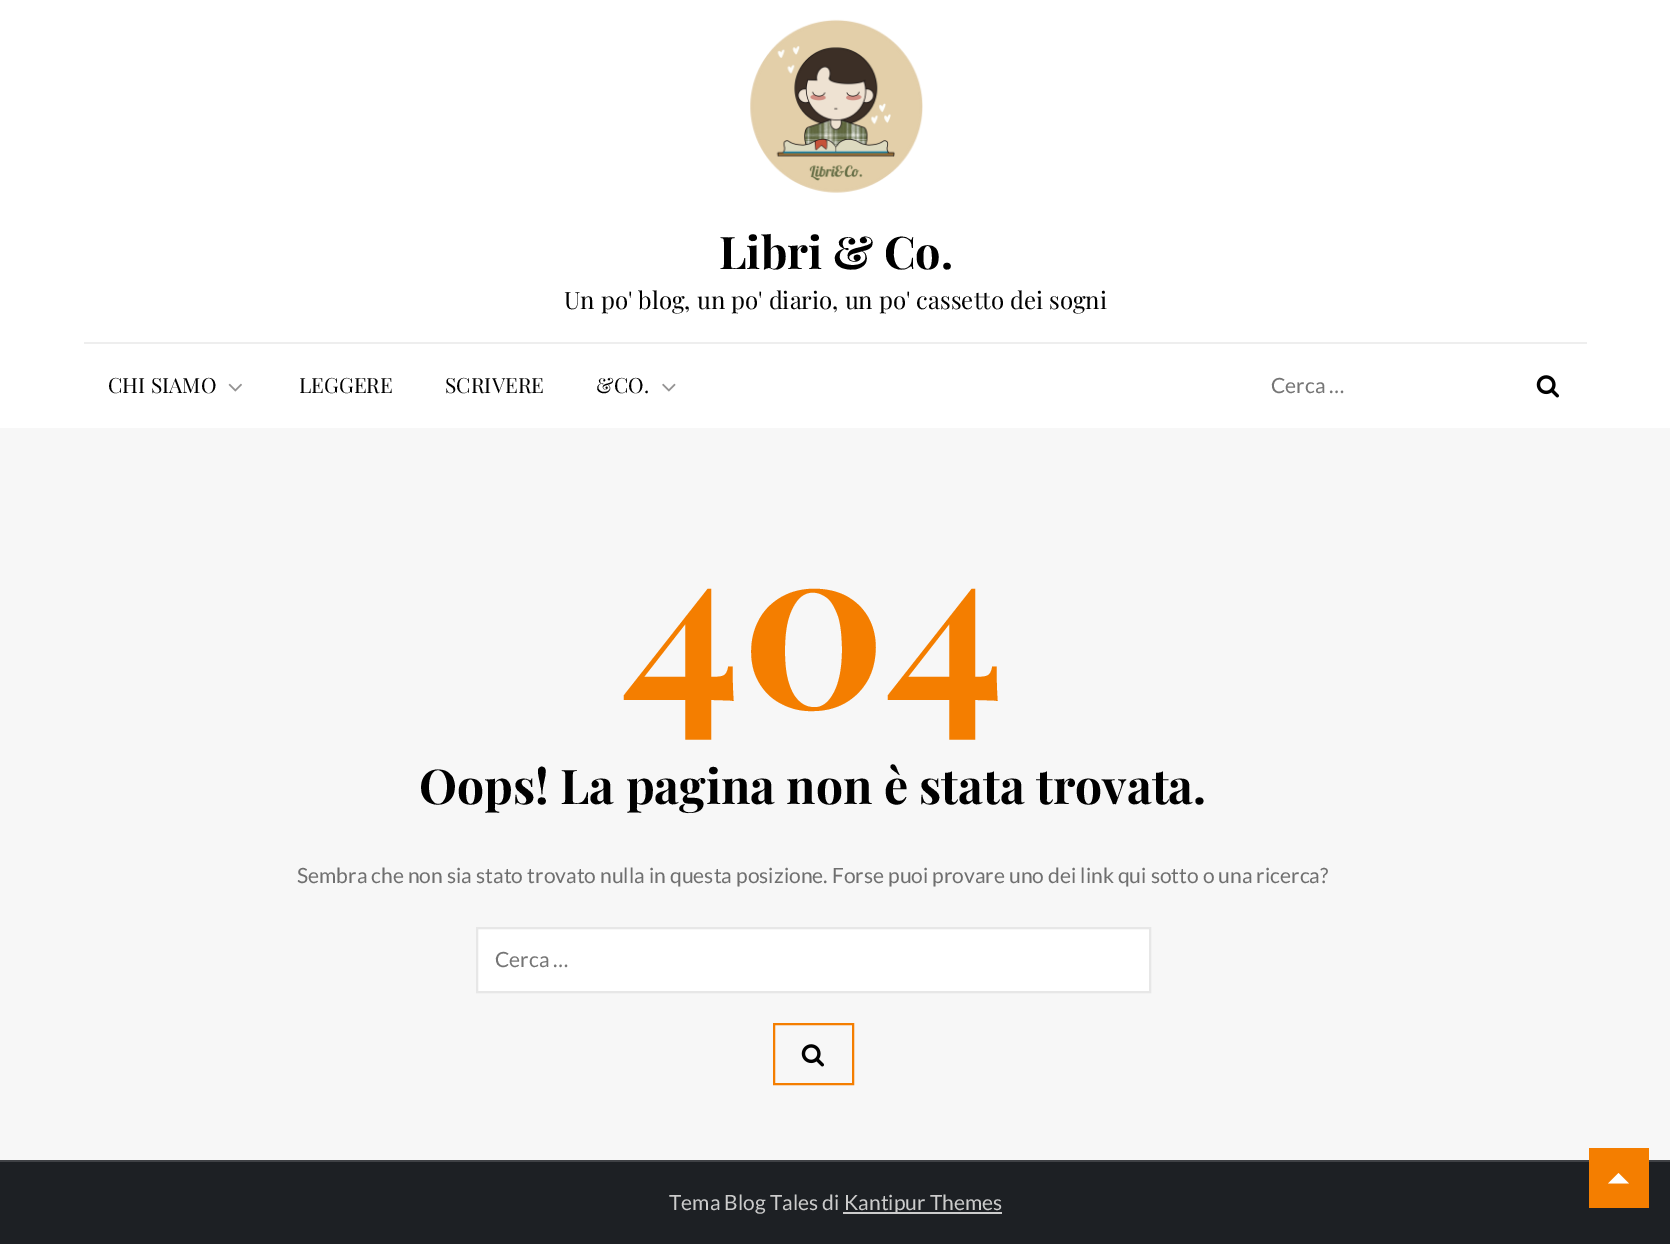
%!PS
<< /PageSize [1670 1244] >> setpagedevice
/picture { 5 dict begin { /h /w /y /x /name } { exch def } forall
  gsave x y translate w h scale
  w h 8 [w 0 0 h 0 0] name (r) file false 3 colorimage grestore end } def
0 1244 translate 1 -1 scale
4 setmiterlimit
0.969 setgray
0 0 1670 1244 rectfill
1 setgray
0 0 1670 428 rectfill
0.933 setgray
84 342 1503 2 rectfill
(img1.rgb) 750 19 173 174 picture
/PlayfairDisplay-Bold [45 0 0 -45 0 0] selectfont
0 setgray
719 269 moveto (Libri & Co.) show
/PlayfairDisplay-Regular [24 0 0 -24 0 0] selectfont
564 309 moveto (Un po' blog, un po' diario, un po' cassetto dei sogni) show
/PlayfairDisplay-Regular [21 0 0 -21 0 0] selectfont
108 393 moveto (CHI SIAMO) show
(img2.rgb) 228 383 14 9 picture
299 393 moveto (LEGGERE) show
445 393 moveto (SCRIVERE) show
596 393 moveto (&CO.) show
(img3.rgb) 662 383 14 9 picture
/Lato-Regular [21 0 0 -21 0 0] selectfont
0.459 setgray
1271 393 moveto (Cerca …) show
(img4.rgb) 1536 375 23 23 picture
/PlayfairDisplay-Bold [225 0 0 -225 0 0] selectfont
0.957 0.494 0 setrgbcolor
622 708 moveto (404) show
/PlayfairDisplay-Bold [48 0 0 -48 0 0] selectfont
0 setgray
419 804 moveto (Oops! La pagina non è stata trovata.) show
/Lato-Regular [21 0 0 -21 0 0] selectfont
0.435 setgray
297 883 moveto (Sembra che non sia stato trovato nulla in questa posizione. Forse puoi provare uno dei link qui sotto o una ricerca?) show
1 setgray
newpath 477 928 moveto 1150 928 lineto 1150 992 lineto 477 992 lineto closepath gsave fill grestore
0.906 setgray
2 setlinewidth
stroke
0.459 setgray
495 967 moveto (Cerca …) show
0.957 0.494 0 setrgbcolor
774 1024 79 60 rectstroke
(img5.rgb) 801 1044 23 23 picture
0.114 0.125 0.141 setrgbcolor
0 1162 1670 82 rectfill
0.247 0.255 0.271 setrgbcolor
0 1160 1670 2 rectfill
0.8 setgray
669 1210 moveto (Tema Blog Tales di) show
843 1212 159 2 rectfill
844 1210 moveto (Kantipur Themes) show
0.957 0.494 0 setrgbcolor
1589 1148 60 60 rectfill
1 setgray
newpath 1629 1183.5 moveto 1608 1183.5 lineto 1618.5 1173 lineto closepath fill
showpage
